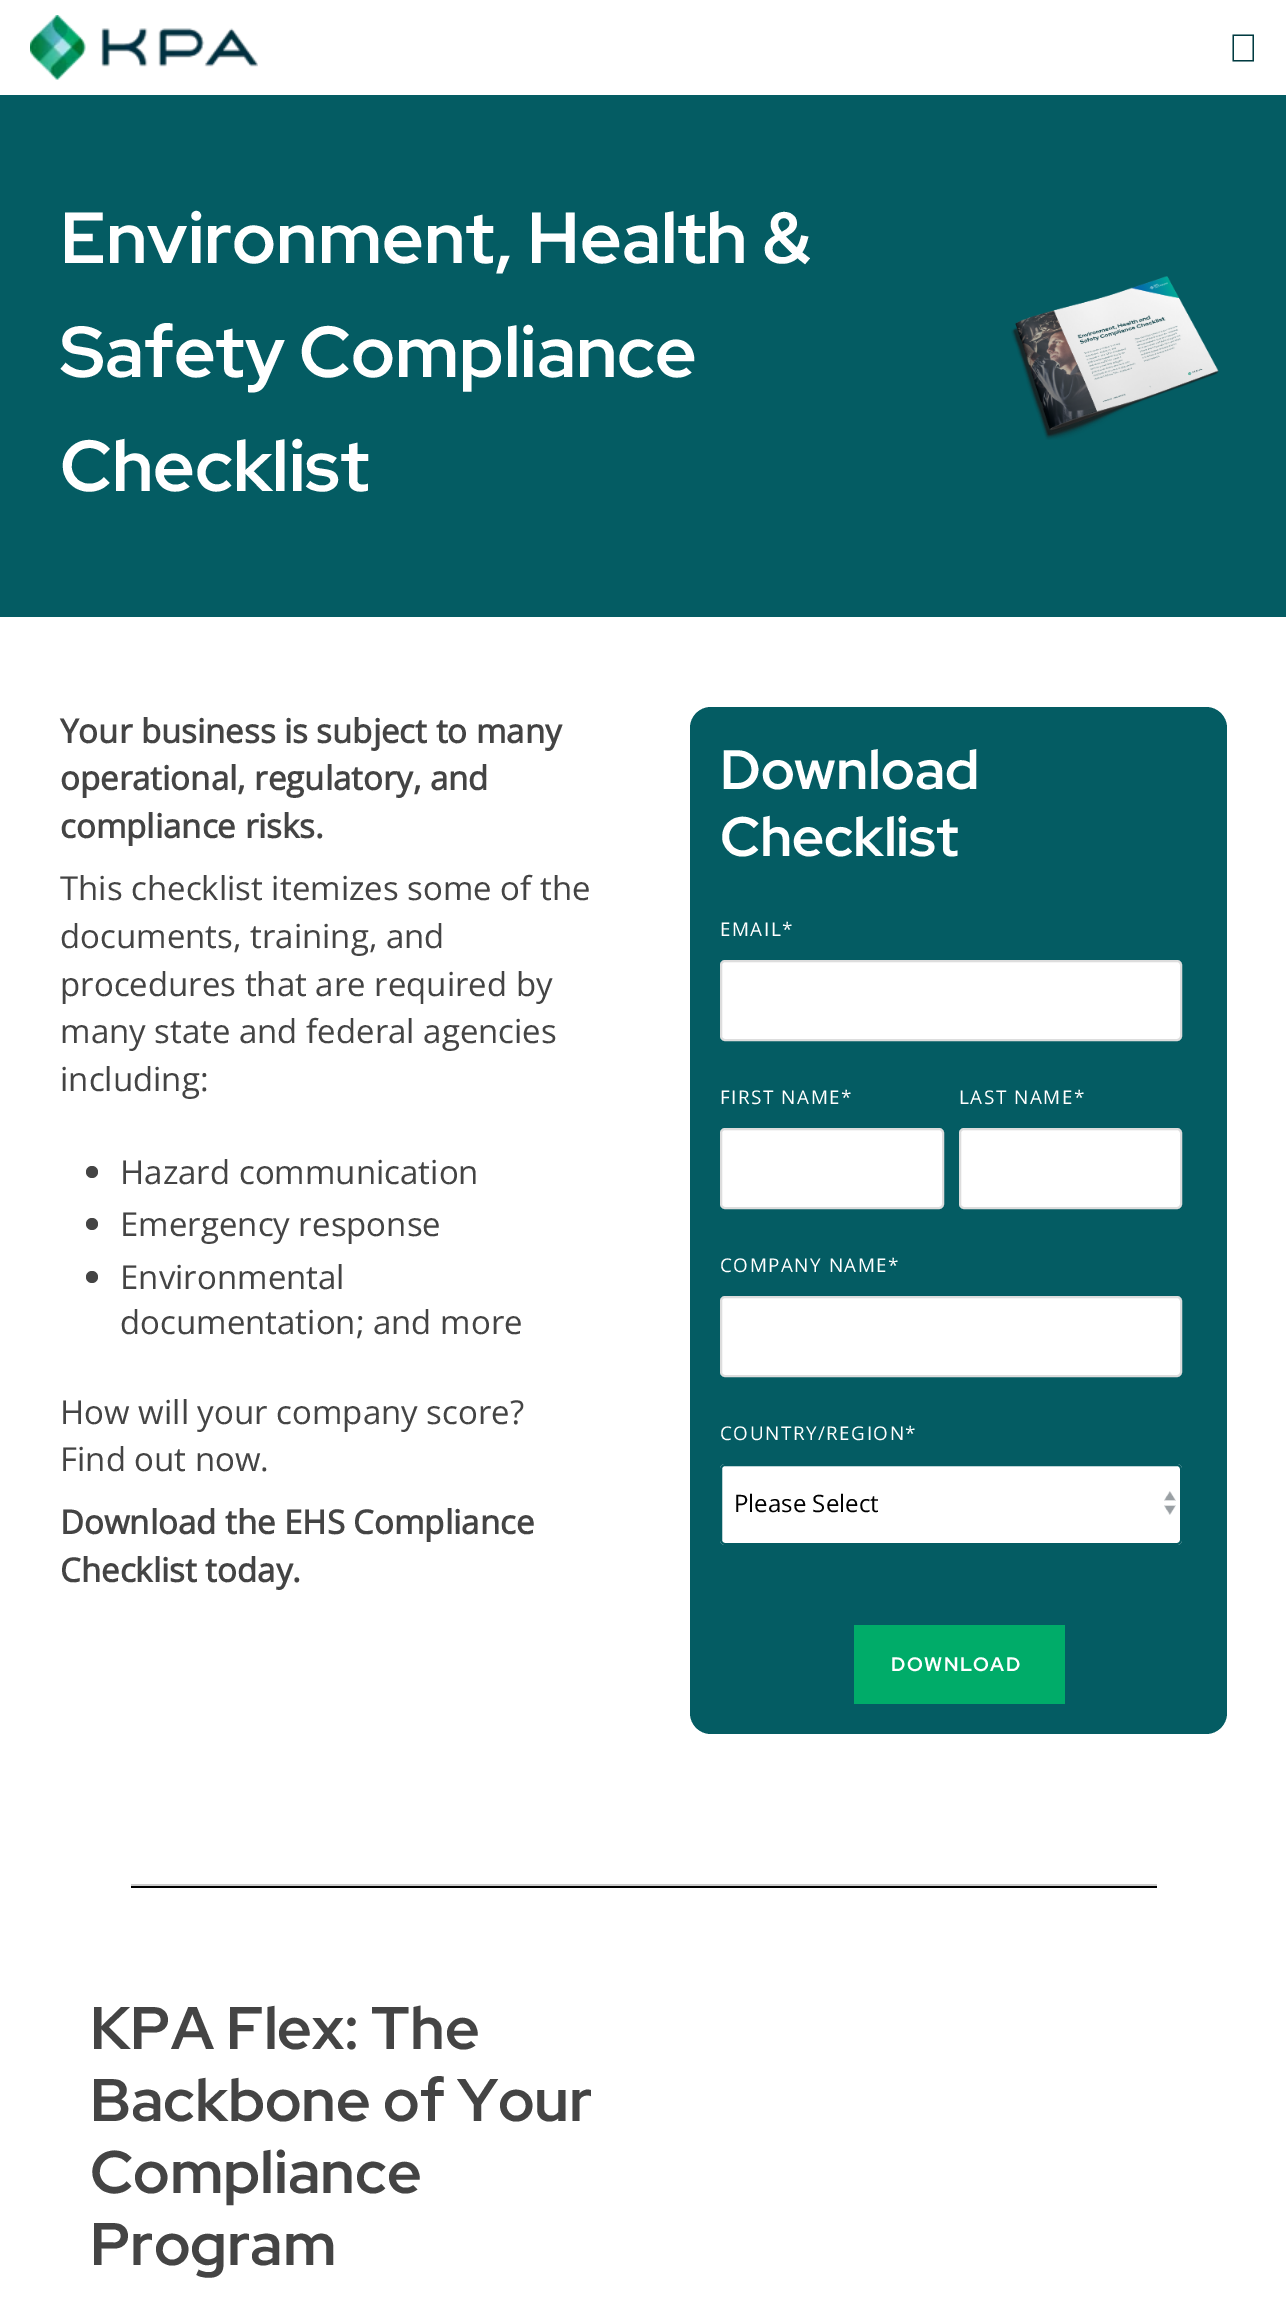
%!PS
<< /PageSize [1286 2297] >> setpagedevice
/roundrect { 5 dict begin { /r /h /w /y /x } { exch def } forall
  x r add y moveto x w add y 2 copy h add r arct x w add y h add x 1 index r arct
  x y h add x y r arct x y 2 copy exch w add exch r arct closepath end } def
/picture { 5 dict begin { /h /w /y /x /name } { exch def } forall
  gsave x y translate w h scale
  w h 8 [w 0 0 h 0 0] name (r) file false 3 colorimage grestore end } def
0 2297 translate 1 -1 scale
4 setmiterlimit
1 setgray
0 0 1286 2297 rectfill
(img1.rgb) 30 15 228 65 picture
0 0.227 0.251 setrgbcolor
newpath 1232.5 34.5 moveto 1254 34.5 lineto 1254 61.5 lineto 1232.5 61.5 lineto closepath 1234 36 moveto 1234 60 lineto 1252.5 60 lineto 1252.5 36 lineto closepath fill
0.016 0.361 0.388 setrgbcolor
0 95 1286 522 rectfill
/RedHatDisplay-Bold [72 0 0 -72 0 0] selectfont
1 setgray
60 263 moveto (Environment, Health &) show
60 377 moveto (Safety Compliance) show
60 491 moveto (Checklist) show
(img2.rgb) 1011 276 208 164 picture
/OpenSans-Bold [33 0 0 -33 0 0] selectfont
0.267 setgray
60 743 moveto (Your business is subject to many) show
60 790 moveto (operational, regulatory, and) show
60 838 moveto (compliance risks.) show
/OpenSans-Regular [33 0 0 -33 0 0] selectfont
60 900 moveto (This checklist itemizes some of the) show
60 948 moveto (documents, training, and) show
60 996 moveto (procedures that are required by) show
60 1043 moveto (many state and federal agencies) show
60 1091 moveto (including:) show
newpath 92 1172 6 0 360 arc closepath fill
120 1184 moveto (Hazard communication) show
newpath 92 1224 6 0 360 arc closepath fill
120 1236 moveto (Emergency response) show
newpath 92 1277 6 0 360 arc closepath fill
120 1289 moveto (Environmental) show
120 1334 moveto (documentation; and more) show
60 1424 moveto (How will your company score?) show
60 1471 moveto (Find out now.) show
/OpenSans-Bold [33 0 0 -33 0 0] selectfont
60 1534 moveto (Download the EHS Compliance) show
60 1582 moveto (Checklist today.) show
0.016 0.361 0.388 setrgbcolor
690 707 537 1027 21 roundrect fill
/RedHatDisplay-Bold [55.5 0 0 -55.5 0 0] selectfont
1 setgray
720 789 moveto (Download) show
720 856 moveto (Checklist) show
/OpenSans-Regular [18.9 0 0 -18.9 0 0] selectfont
720 936 moveto 1.5 0 (EMAIL*) ashow
721 961 460 79 4 roundrect gsave fill grestore
0.867 setgray
2 setlinewidth
stroke
1 setgray
720 1104 moveto 1.5 0 (FIRST NAME*) ashow
721 1129 222 79 4 roundrect gsave fill grestore
0.867 setgray
stroke
1 setgray
959 1104 moveto 1.5 0 (LAST NAME*) ashow
960 1129 221 79 4 roundrect gsave fill grestore
0.867 setgray
stroke
1 setgray
720 1272 moveto 1.5 0 (COMPANY NAME*) ashow
721 1297 460 79 4 roundrect gsave fill grestore
0.867 setgray
stroke
1 setgray
720 1440 moveto 1.5 0 (COUNTRY/REGION*) ashow
720 1464 462 81 5 roundrect fill
(img3.rgb) 1164 1491 12 24 picture
0.016 0.361 0.388 setrgbcolor
721 1465 460 79 4 roundrect stroke
/OpenSans-Regular [24 0 0 -24 0 0] selectfont
0 setgray
734 1512 moveto (Please Select) show
0 0.675 0.412 setrgbcolor
854 1625 211 79 rectfill
/RedHatDisplay-Bold [19.5 0 0 -19.5 0 0] selectfont
1 setgray
891 1671 moveto 1.5 0 (DOWNLOAD) ashow
0.8 setgray
131 1884 1026 2 rectfill
0 setgray
131 1886 1026 2 rectfill
/RedHatDisplay-Bold [60 0 0 -60 0 0] selectfont
0.267 setgray
90 2049 moveto (KPA Flex: The) show
90 2121 moveto (Backbone of Your) show
90 2193 moveto (Compliance) show
90 2265 moveto (Program) show
showpage
